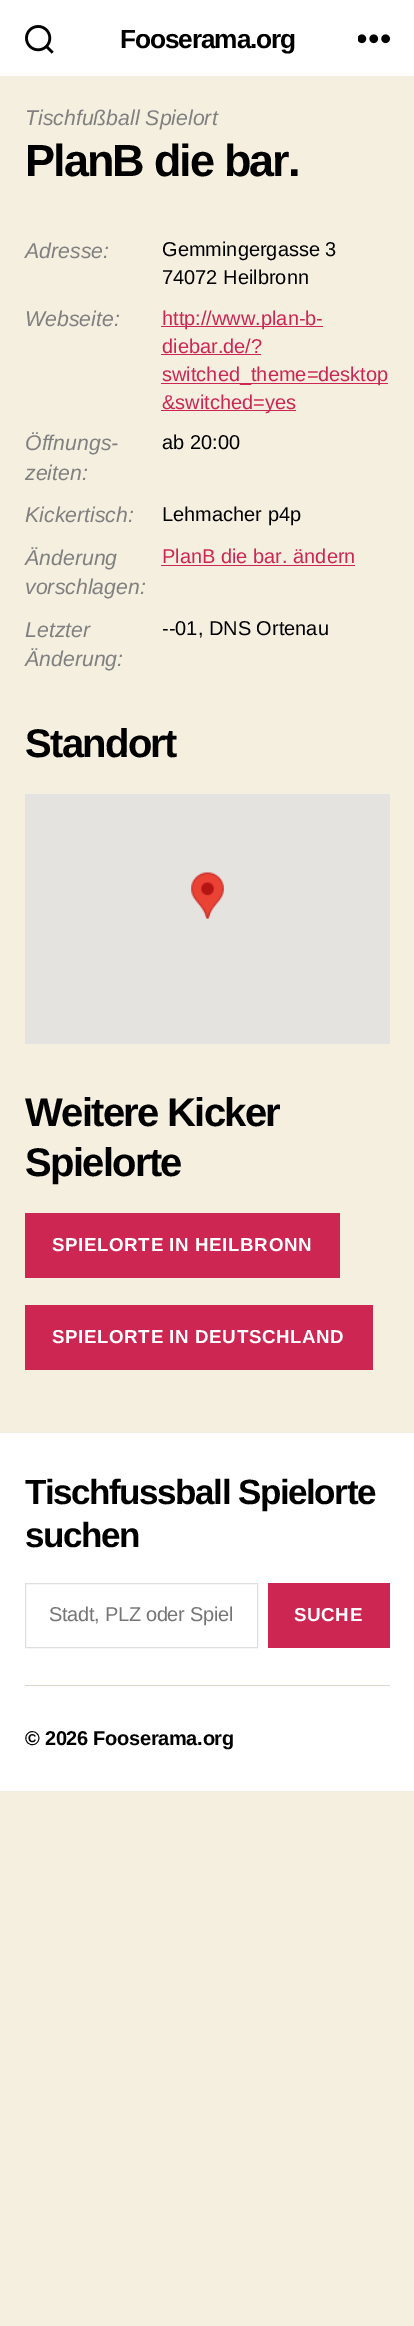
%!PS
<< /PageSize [414 2326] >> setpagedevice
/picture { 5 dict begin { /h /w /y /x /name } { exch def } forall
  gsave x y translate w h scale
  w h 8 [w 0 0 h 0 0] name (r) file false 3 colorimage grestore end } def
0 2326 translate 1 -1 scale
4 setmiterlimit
0.961 0.937 0.878 setrgbcolor
0 0 414 2326 rectfill
1 setgray
0 0 414 76 rectfill
(img1.rgb) 25 25 29 29 picture
/LiberationSans-Bold [26.25 0 0 -26.25 0 0] selectfont
0 setgray
120 48 moveto -1.1 0 (Fooserama.org) ashow
(img2.rgb) 358 34 32 10 picture
/LiberationSans-Italic [21.25 0 0 -21.25 0 0] selectfont
0.502 setgray
25 125 moveto (Tischfußball Spielort) show
/LiberationSans-Bold [45 0 0 -45 0 0] selectfont
0 setgray
25 176 moveto -1.9 0 (PlanB die bar.) ashow
/LiberationSans-Italic [21.25 0 0 -21.25 0 0] selectfont
0.502 setgray
25 258 moveto (Adresse:) show
/LiberationSans-Regular [20 0 0 -20 0 0] selectfont
0 setgray
162 256 moveto (Gemmingergasse 3) show
162 284 moveto (74072 Heilbronn) show
/LiberationSans-Italic [21.25 0 0 -21.25 0 0] selectfont
0.502 setgray
25 326 moveto (Webseite:) show
0.804 0.149 0.325 setrgbcolor
161 326 162 1 rectfill
/LiberationSans-Regular [20 0 0 -20 0 0] selectfont
162 325 moveto (http://www.plan-b-) show
162 353 moveto (diebar.de/?) show
161 354 100 1 rectfill
161 383 227 1 rectfill
162 381 moveto (switched_theme=desktop) show
161 410 135 1 rectfill
162 409 moveto (&switched=yes) show
/LiberationSans-Italic [21.25 0 0 -21.25 0 0] selectfont
0.502 setgray
25 450 moveto (Öffnungs-) show
25 480 moveto (zeiten:) show
/LiberationSans-Regular [20 0 0 -20 0 0] selectfont
0 setgray
162 449 moveto (ab 20:00) show
/LiberationSans-Italic [21.25 0 0 -21.25 0 0] selectfont
0.502 setgray
25 522 moveto (Kickertisch:) show
/LiberationSans-Regular [20 0 0 -20 0 0] selectfont
0 setgray
162 521 moveto (Lehmacher p4p) show
/LiberationSans-Italic [21.25 0 0 -21.25 0 0] selectfont
0.502 setgray
25 565 moveto (Änderung) show
25 594 moveto (vorschlagen:) show
/LiberationSans-Regular [20 0 0 -20 0 0] selectfont
0.804 0.149 0.325 setrgbcolor
162 563 moveto (PlanB die bar. ändern) show
161 565 194 1 rectfill
/LiberationSans-Italic [21.25 0 0 -21.25 0 0] selectfont
0.502 setgray
25 637 moveto (Letzter) show
25 666 moveto (Änderung:) show
/LiberationSans-Regular [20 0 0 -20 0 0] selectfont
0 setgray
162 635 moveto (--01, DNS Ortenau) show
/LiberationSans-Bold [40 0 0 -40 0 0] selectfont
25 757 moveto -1.7 0 (Standort) ashow
0.898 0.89 0.875 setrgbcolor
25 794 365 250 rectfill
(img3.rgb) 191 872 33 47 picture
0 setgray
25 1126 moveto -1.7 0 (Weitere Kicker) ashow
25 1176 moveto -1.7 0 (Spielorte) ashow
0.804 0.149 0.325 setrgbcolor
25 1213 315 65 rectfill
/LiberationSans-Bold [18.75 0 0 -18.75 0 0] selectfont
1 setgray
52 1251 moveto 0.6 0 (SPIELORTE IN HEILBRONN) ashow
0.804 0.149 0.325 setrgbcolor
25 1305 348 65 rectfill
1 setgray
52 1343 moveto 0.6 0 (SPIELORTE IN DEUTSCHLAND) ashow
0 1433 414 358 rectfill
0.863 0.843 0.792 setrgbcolor
25 1685 365 1 rectfill
/LiberationSans-Bold [35 0 0 -35 0 0] selectfont
0 setgray
25 1504 moveto -1.45 0 (Tischfussball Spielorte) ashow
25 1547 moveto -1.45 0 (suchen) ashow
0.871 0.875 0.875 setrgbcolor
25.5 1583.5 232 64 rectstroke
/LiberationSans-Regular [20 0 0 -20 0 0] selectfont
0.459 setgray
49 1621 moveto -0.3 0 (Stadt, PLZ oder Spiel) ashow
0.804 0.149 0.325 setrgbcolor
268 1583 122 65 rectfill
/LiberationSans-Bold [18.75 0 0 -18.75 0 0] selectfont
1 setgray
294 1621 moveto 0.6 0 (SUCHE) ashow
/LiberationSans-Bold [20 0 0 -20 0 0] selectfont
0 setgray
25 1745 moveto -0.3 0 (© 2026 Fooserama.org) ashow
showpage
